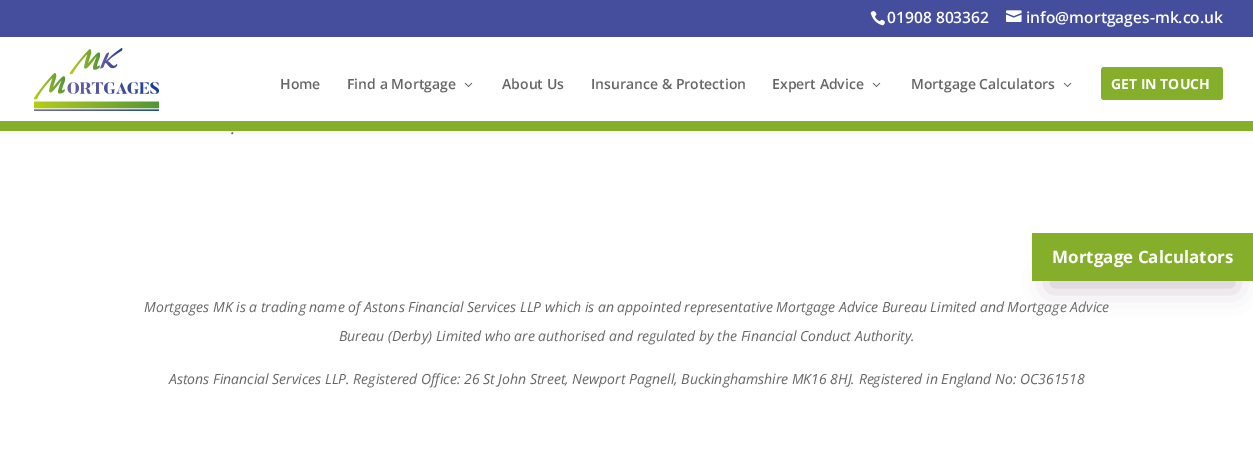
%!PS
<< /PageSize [1253 469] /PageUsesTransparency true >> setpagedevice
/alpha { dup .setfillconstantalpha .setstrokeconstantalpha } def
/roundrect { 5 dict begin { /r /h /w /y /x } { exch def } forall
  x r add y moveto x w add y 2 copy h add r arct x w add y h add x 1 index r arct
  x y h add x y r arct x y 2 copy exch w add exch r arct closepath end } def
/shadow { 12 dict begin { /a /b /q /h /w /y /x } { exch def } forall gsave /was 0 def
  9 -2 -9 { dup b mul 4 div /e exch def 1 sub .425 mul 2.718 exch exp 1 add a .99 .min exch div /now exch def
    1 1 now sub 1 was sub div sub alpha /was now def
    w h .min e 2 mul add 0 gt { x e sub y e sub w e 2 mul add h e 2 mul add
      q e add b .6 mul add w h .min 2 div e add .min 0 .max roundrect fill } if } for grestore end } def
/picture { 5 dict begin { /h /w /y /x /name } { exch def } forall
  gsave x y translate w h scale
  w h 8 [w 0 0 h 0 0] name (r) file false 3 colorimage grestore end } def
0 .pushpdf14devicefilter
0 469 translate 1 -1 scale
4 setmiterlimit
1 setgray
0 0 1253 469 rectfill
0 setgray
0 37 1253 94 0 3.5 0.1 shadow
0.271 0.306 0.612 setrgbcolor
0 0 1253 37 rectfill
(img1.rgb) 870 11 15 15 picture
/OpenSans-SemiBold [15.6 0 0 -15.6 0 0] selectfont
1 setgray
887 23 moveto (01908 803362) show
(img2.rgb) 1006 10 16 12 picture
1026 23 moveto (info@mortgages-mk.co.uk) show
0 37 1253 84 rectfill
0.522 0.686 0.169 setrgbcolor
0 121 1253 10 rectfill
(img3.rgb) 34 48 125 63 picture
/OpenSans-SemiBold [14 0 0 -14 0 0] selectfont
0.4 setgray
280 89 moveto (Home) show
347 89 moveto (Find a Mortgage) show
(img4.rgb) 464 82 9 5 picture
502 89 moveto (About Us) show
591 89 moveto (Insurance & Protection) show
772 89 moveto (Expert Advice) show
(img4.rgb) 872 82 9 5 picture
911 89 moveto (Mortgage Calculators) show
(img4.rgb) 1063 82 9 5 picture
0.522 0.686 0.169 setrgbcolor
1101 67 122 33 3 roundrect fill
/OpenSans-Bold [14 0 0 -14 0 0] selectfont
1 setgray
1111 89 moveto (GET IN TOUCH) show
/OpenSans-Italic [17 0 0 -17 0 0] selectfont
0.4 setgray
231 134 moveto (.) show
/OpenSans-Italic [14 0 0 -14 0 0] selectfont
144 312 moveto (Mortgages MK is a trading name of Astons Financial Services LLP which is an appointed representative Mortgage Advice Bureau Limited and Mortgage Advice) show
339 341 moveto (Bureau \(Derby\) Limited who are authorised and regulated by the Financial Conduct Authority.) show
169 384 moveto (Astons Financial Services LLP. Registered Office: 26 St John Street, Newport Pagnell, Buckinghamshire MK16 8HJ. Registered in England No: OC361518) show
0.761 0.706 0.745 setrgbcolor
1053 279 179 6 0 14 1 shadow
0.522 0.686 0.169 setrgbcolor
1032 233 221 48 rectfill
/OpenSans-Bold [17 0 0 -17 0 0] selectfont
1 setgray
1052 263 moveto (Mortgage Calculators) show
.poppdf14devicefilter showpage
